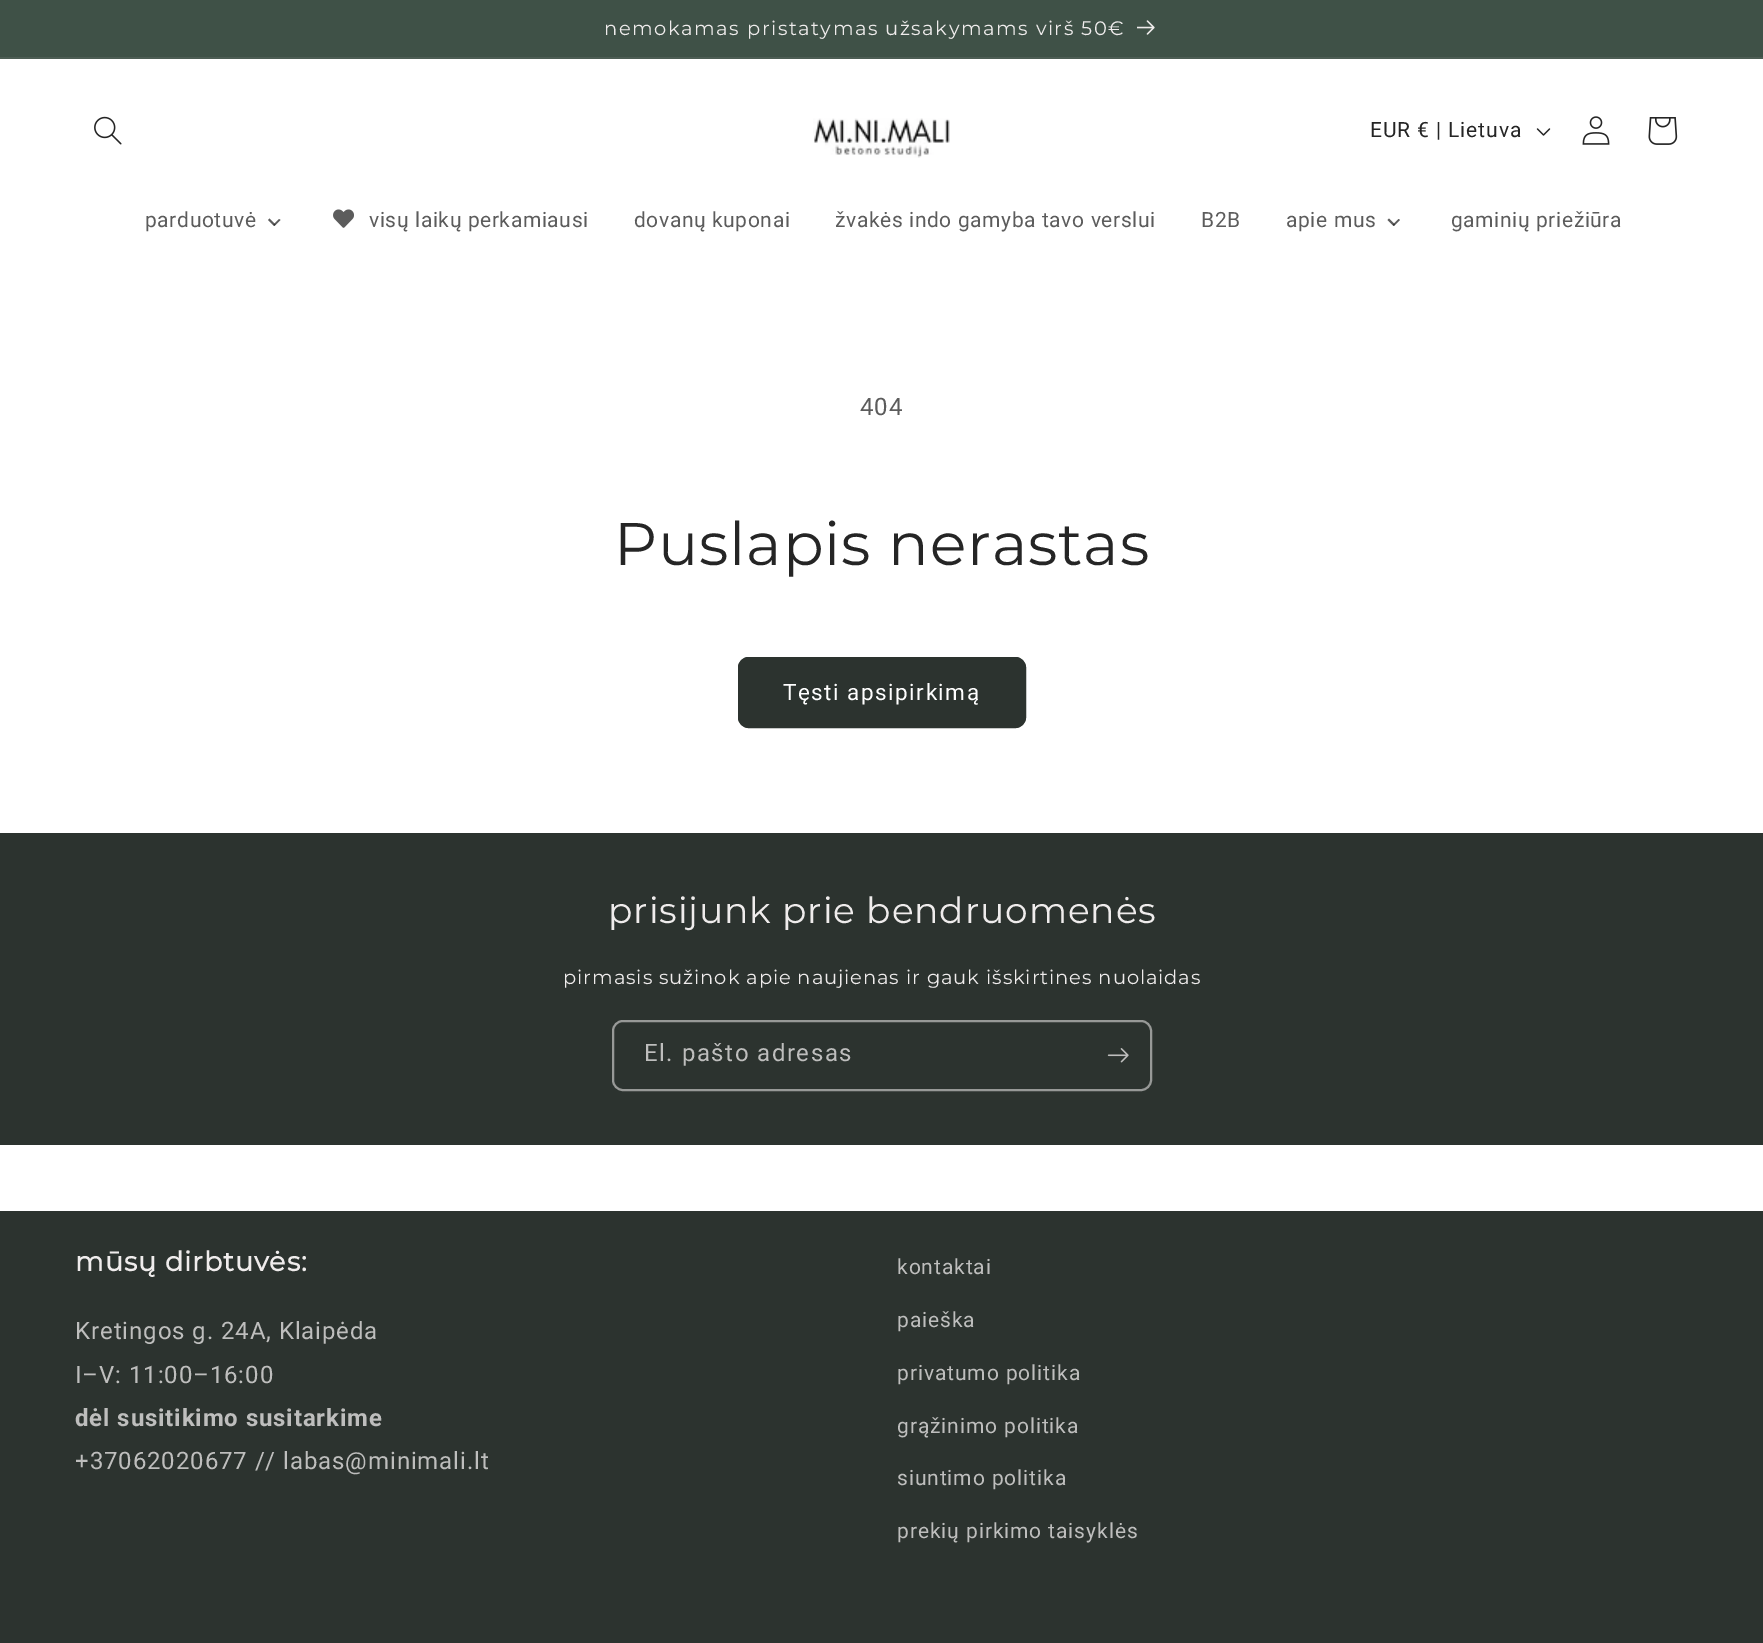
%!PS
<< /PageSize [1763 1643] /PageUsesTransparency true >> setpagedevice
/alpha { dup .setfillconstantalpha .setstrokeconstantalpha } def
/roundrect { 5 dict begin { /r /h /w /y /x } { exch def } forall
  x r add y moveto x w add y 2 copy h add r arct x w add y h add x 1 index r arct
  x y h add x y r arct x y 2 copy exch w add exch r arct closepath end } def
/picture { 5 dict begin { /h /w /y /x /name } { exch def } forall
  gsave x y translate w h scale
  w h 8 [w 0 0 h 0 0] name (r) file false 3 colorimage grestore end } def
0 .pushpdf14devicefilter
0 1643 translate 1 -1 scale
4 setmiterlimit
1 setgray
0 0 1763 1643 rectfill
0.247 0.318 0.278 setrgbcolor
0 0 1763 57 rectfill
0.302 0.365 0.329 setrgbcolor
0 57 1763 2 rectfill
/Montserrat-Regular [19.5 0 0 -19.5 0 0] selectfont
0.937 0.925 0.925 setrgbcolor
604 35 moveto 1.5 0 (nemokamas pristatymas užsakymams virš 50€) ashow
(img1.rgb) 1137 20 18 15 picture
(img2.rgb) 94 116 28 29 picture
(img3.rgb) 813 118 137 40 picture
/Roboto-Regular [21 0 0 -21 0 0] selectfont
0.145 setgray
1370 137 moveto 0.9 0 (EUR € | Lietuva) ashow
(img4.rgb) 1536 128 15 8 picture
(img5.rgb) 1582 116 28 29 picture
(img6.rgb) 1648 117 30 28 picture
0.361 setgray
145 227 moveto 0.6 0 (parduotuvė) ashow
newpath 279 219 moveto 280.5 220 lineto 274.5 226 lineto 273.5 224.5 lineto closepath fill
0.75 alpha
0.145 setgray
newpath 269.5 218.5 moveto 275.5 224.5 lineto 274 226 lineto 268 220 lineto closepath fill
1 alpha
(img7.rgb) 333 209 21 19 picture
0.361 setgray
369 227 moveto 0.6 0 (visų laikų perkamiausi) ashow
634 227 moveto 0.6 0 (dovanų kuponai) ashow
835 227 moveto 0.6 0 (žvakės indo gamyba tavo verslui) ashow
1201 227 moveto 0.6 0 (B2B) ashow
1286 227 moveto 0.6 0 (apie mus) ashow
newpath 1398.5 219 moveto 1400 220 lineto 1394 226 lineto 1393 224.5 lineto closepath fill
0.75 alpha
0.145 setgray
newpath 1389 218.5 moveto 1395 224.5 lineto 1393.5 226 lineto 1387.5 220 lineto closepath fill
1 alpha
0.361 setgray
1451 227 moveto 0.6 0 (gaminių priežiūra) ashow
/Roboto-Regular [24 0 0 -24 0 0] selectfont
860 415 moveto 0.9 0 (404) ashow
/Montserrat-Regular [60 0 0 -60 0 0] selectfont
0.145 setgray
614 565 moveto 0.9 0 (Puslapis nerastas) ashow
0.173 0.2 0.184 setrgbcolor
738 657 288 71 11 roundrect fill
2 setlinewidth
739 658 286 69 10 roundrect stroke
/Roboto-Regular [22.5 0 0 -22.5 0 0] selectfont
1 setgray
783 700 moveto 1.5 0 (Tęsti apsipirkimą) ashow
0.173 0.2 0.184 setrgbcolor
0 833 1763 312 rectfill
/Montserrat-Regular [36 0 0 -36 0 0] selectfont
0.937 0.925 0.925 setrgbcolor
608 923 moveto 0.9 0 (prisijunk prie bendruomenės) ashow
/Montserrat-Regular [19.5 0 0 -19.5 0 0] selectfont
563 984 moveto 0.9 0 (pirmasis sužinok apie naujienas ir gauk išskirtines nuolaidas) ashow
0.592 0.6 0.592 setrgbcolor
613 1021 538 69 10 roundrect stroke
/Roboto-Regular [24 0 0 -24 0 0] selectfont
0.745 0.745 0.741 setrgbcolor
644 1061 moveto 1.5 0 (El. pašto adresas) ashow
(img8.rgb) 1107 1048 22 15 picture
0.173 0.2 0.184 setrgbcolor
0 1211 1763 432 rectfill
/Montserrat-Bold [27 0 0 -27 0 0] selectfont
0.937 0.925 0.925 setrgbcolor
75 1271 moveto 0.9 0 (mūsų dirbtuvės:) ashow
/Roboto-Regular [24 0 0 -24 0 0] selectfont
0.745 0.745 0.741 setrgbcolor
75 1339 moveto 0.9 0 (Kretingos g. 24A, Klaipėda) ashow
75 1383 moveto 0.9 0 (I–V: 11:00–16:00) ashow
/Roboto-Bold [24 0 0 -24 0 0] selectfont
75 1426 moveto 0.9 0 (dėl susitikimo susitarkime) ashow
/Roboto-Regular [24 0 0 -24 0 0] selectfont
75 1469 moveto 0.9 0 (+37062020677 // labas@minimali.lt) ashow
/Roboto-Regular [21 0 0 -21 0 0] selectfont
897 1274 moveto 0.9 0 (kontaktai) ashow
897 1327 moveto 0.9 0 (paieška) ashow
897 1380 moveto 0.9 0 (privatumo politika) ashow
897 1433 moveto 0.9 0 (grąžinimo politika) ashow
897 1485 moveto 0.9 0 (siuntimo politika) ashow
897 1538 moveto 0.9 0 (prekių pirkimo taisyklės) ashow
.poppdf14devicefilter showpage
